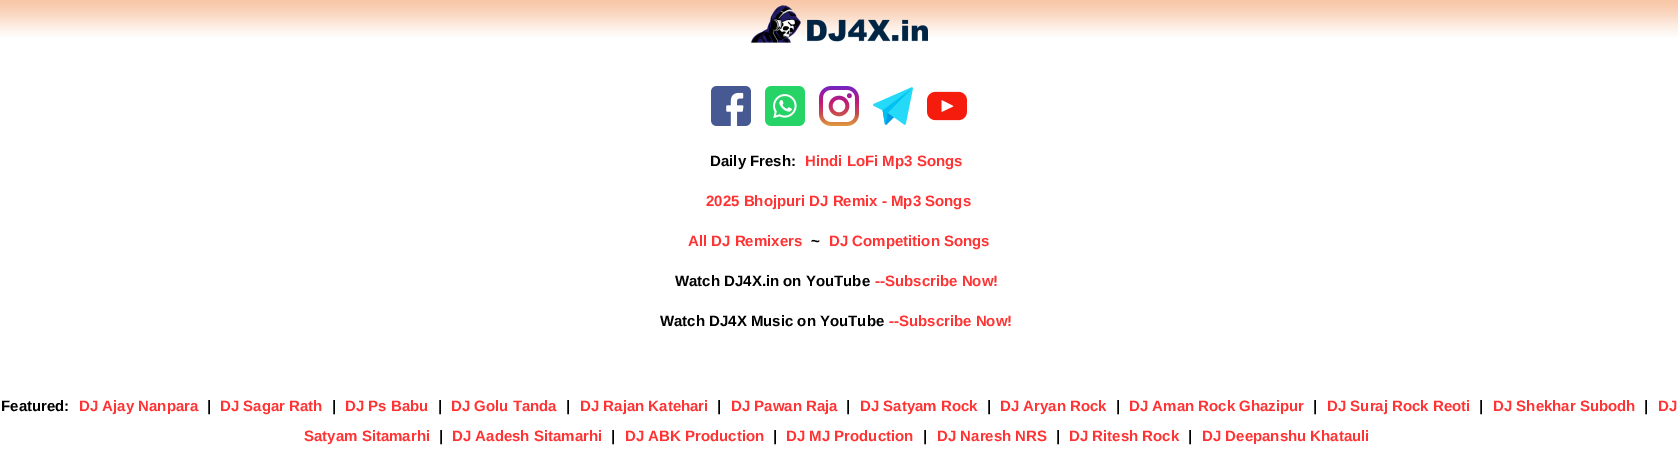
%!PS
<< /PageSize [1678 476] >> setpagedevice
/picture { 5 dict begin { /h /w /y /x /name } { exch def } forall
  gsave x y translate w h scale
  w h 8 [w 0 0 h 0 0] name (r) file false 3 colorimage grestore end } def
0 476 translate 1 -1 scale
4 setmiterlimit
1 setgray
0 0 1678 476 rectfill
(img1.rgb) 0 0 1678 37 picture
(img2.rgb) 751 5 177 38 picture
(img3.rgb) 711 86 40 40 picture
(img4.rgb) 765 86 40 40 picture
(img5.rgb) 819 86 40 40 picture
(img6.rgb) 873 87 40 38 picture
(img7.rgb) 927 91 40 30 picture
/LiberationSans-Bold [15 0 0 -15 0 0] selectfont
0 setgray
710 166 moveto (Daily Fresh:) show
1 0.2 0.2 setrgbcolor
805 166 moveto (Hindi LoFi Mp3 Songs) show
706 206 moveto (2025 Bhojpuri DJ Remix - Mp3 Songs) show
688 246 moveto (All DJ Remixers) show
0 setgray
811 246 moveto (~) show
1 0.2 0.2 setrgbcolor
829 246 moveto (DJ Competition Songs) show
0 setgray
675 286 moveto (Watch DJ4X.in on YouTube) show
1 0.2 0.2 setrgbcolor
875 286 moveto (--Subscribe Now!) show
0 setgray
660 326 moveto (Watch DJ4X Music on YouTube) show
1 0.2 0.2 setrgbcolor
889 326 moveto (--Subscribe Now!) show
0 setgray
1 411 moveto (Featured:) show
1 0.2 0.2 setrgbcolor
79 411 moveto (DJ Ajay Nanpara) show
0 setgray
207 411 moveto (|) show
1 0.2 0.2 setrgbcolor
220 411 moveto (DJ Sagar Rath) show
0 setgray
332 411 moveto (|) show
1 0.2 0.2 setrgbcolor
345 411 moveto (DJ Ps Babu) show
0 setgray
438 411 moveto (|) show
1 0.2 0.2 setrgbcolor
451 411 moveto (DJ Golu Tanda) show
0 setgray
566 411 moveto (|) show
1 0.2 0.2 setrgbcolor
580 411 moveto (DJ Rajan Katehari) show
0 setgray
717 411 moveto (|) show
1 0.2 0.2 setrgbcolor
731 411 moveto (DJ Pawan Raja) show
0 setgray
846 411 moveto (|) show
1 0.2 0.2 setrgbcolor
860 411 moveto (DJ Satyam Rock) show
0 setgray
987 411 moveto (|) show
1 0.2 0.2 setrgbcolor
1000 411 moveto (DJ Aryan Rock) show
0 setgray
1116 411 moveto (|) show
1 0.2 0.2 setrgbcolor
1129 411 moveto (DJ Aman Rock Ghazipur) show
0 setgray
1313 411 moveto (|) show
1 0.2 0.2 setrgbcolor
1327 411 moveto (DJ Suraj Rock Reoti) show
0 setgray
1479 411 moveto (|) show
1 0.2 0.2 setrgbcolor
1493 411 moveto (DJ Shekhar Subodh) show
0 setgray
1644 411 moveto (|) show
1 0.2 0.2 setrgbcolor
1658 411 moveto (DJ) show
304 441 moveto (Satyam Sitamarhi) show
0 setgray
439 441 moveto (|) show
1 0.2 0.2 setrgbcolor
452 441 moveto (DJ Aadesh Sitamarhi) show
0 setgray
611 441 moveto (|) show
1 0.2 0.2 setrgbcolor
625 441 moveto (DJ ABK Production) show
0 setgray
773 441 moveto (|) show
1 0.2 0.2 setrgbcolor
786 441 moveto (DJ MJ Production) show
0 setgray
923 441 moveto (|) show
1 0.2 0.2 setrgbcolor
937 441 moveto (DJ Naresh NRS) show
0 setgray
1056 441 moveto (|) show
1 0.2 0.2 setrgbcolor
1069 441 moveto (DJ Ritesh Rock) show
0 setgray
1188 441 moveto (|) show
1 0.2 0.2 setrgbcolor
1202 441 moveto (DJ Deepanshu Khatauli) show
showpage
